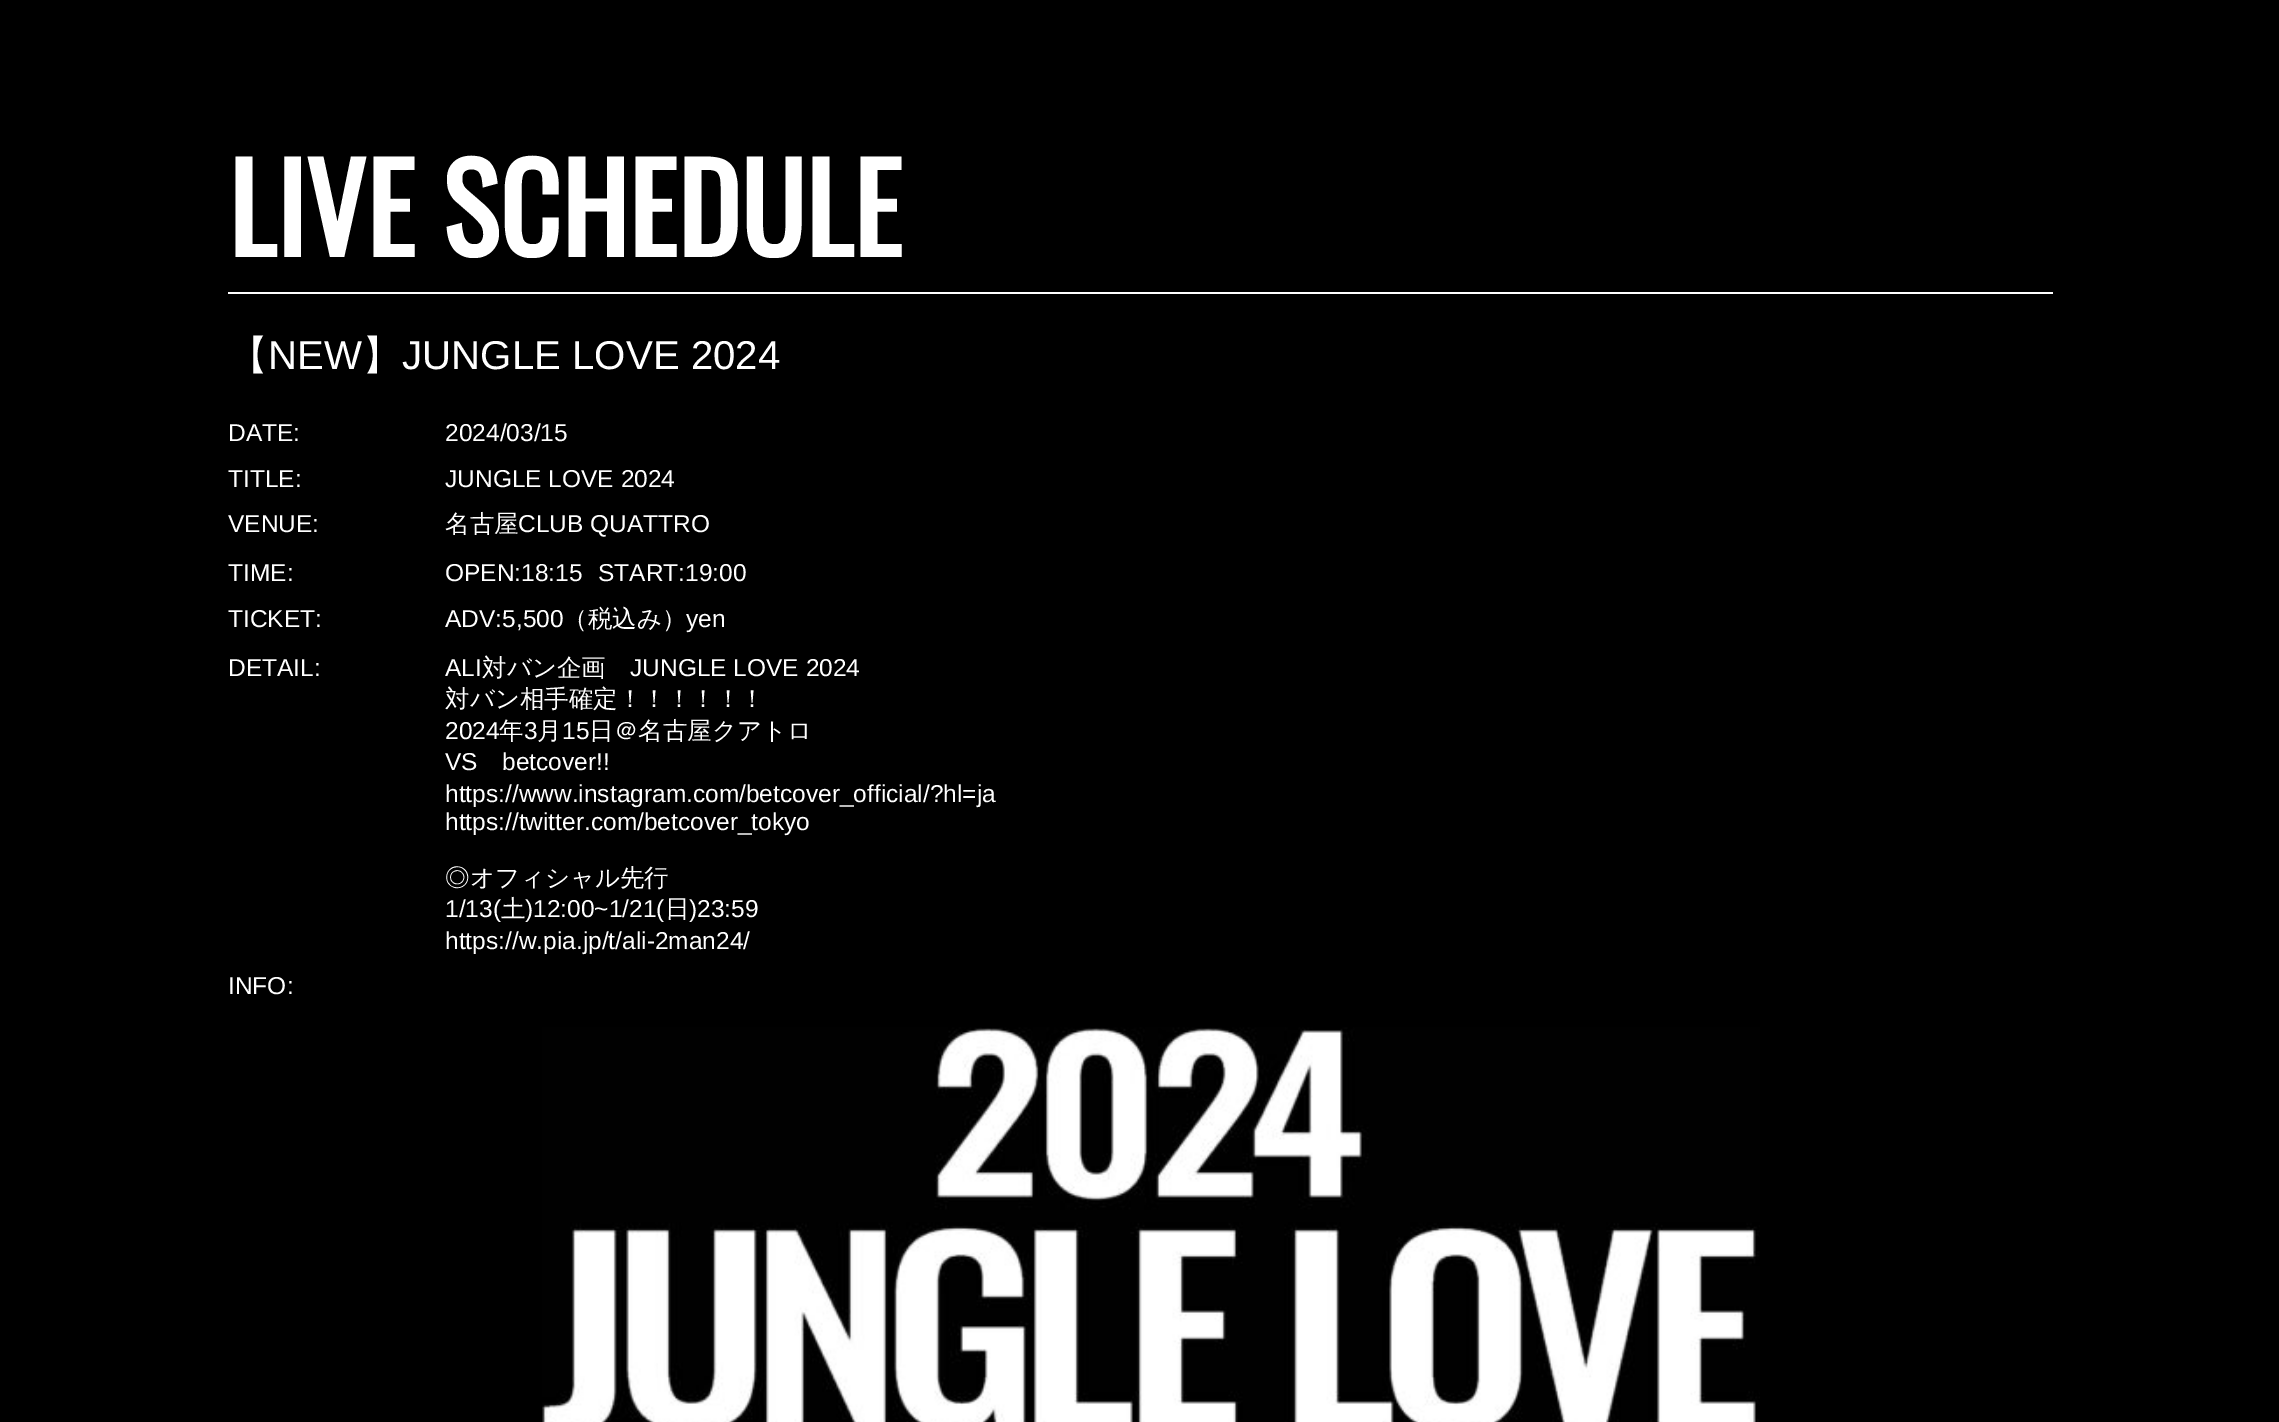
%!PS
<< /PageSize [2279 1422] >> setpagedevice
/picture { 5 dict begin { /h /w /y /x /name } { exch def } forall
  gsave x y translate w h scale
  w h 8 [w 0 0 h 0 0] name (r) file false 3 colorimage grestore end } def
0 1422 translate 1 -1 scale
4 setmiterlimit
0 setgray
0 0 2279 1422 rectfill
1 setgray
228 292 1825 2 rectfill
/Oswald-Bold [120 0 0 -120 0 0] selectfont
228 257 moveto (LIVE SCHEDULE) show
/WenQuanYiZenHei-Medium [40.25 0 0 -40.25 0 0] selectfont
228 369 moveto (【) show
/LiberationSans-Regular [40.25 0 0 -40.25 0 0] selectfont
268 369 moveto (NEW) show
/WenQuanYiZenHei-Medium [40.25 0 0 -40.25 0 0] selectfont
362 369 moveto (】) show
/LiberationSans-Regular [40.25 0 0 -40.25 0 0] selectfont
402 369 moveto (JUNGLE LOVE 2024) show
/LiberationSans-Regular [24.5 0 0 -24.5 0 0] selectfont
228 441 moveto (DATE:) show
445 441 moveto (2024/03/15) show
228 487 moveto (TITLE:) show
445 487 moveto (JUNGLE LOVE 2024) show
228 532 moveto (VENUE:) show
/WenQuanYiZenHei-Medium [24.5 0 0 -24.5 0 0] selectfont
445 532 moveto (名古屋) show
/LiberationSans-Regular [24.5 0 0 -24.5 0 0] selectfont
518 532 moveto (CLUB QUATTRO) show
228 581 moveto (TIME:) show
445 581 moveto (OPEN:18:15) show
598 581 moveto (START:19:00) show
228 627 moveto (TICKET:) show
445 627 moveto (ADV:5,500) show
/WenQuanYiZenHei-Medium [24.5 0 0 -24.5 0 0] selectfont
563 627 moveto (（税込み）) show
/LiberationSans-Regular [24.5 0 0 -24.5 0 0] selectfont
686 627 moveto (yen) show
228 676 moveto (DETAIL:) show
445 676 moveto (ALI) show
/WenQuanYiZenHei-Medium [24.5 0 0 -24.5 0 0] selectfont
482 676 moveto (対バン企画) show
/LiberationSans-Regular [24.5 0 0 -24.5 0 0] selectfont
630 676 moveto (JUNGLE LOVE 2024) show
/WenQuanYiZenHei-Medium [24.5 0 0 -24.5 0 0] selectfont
445 707 moveto (対バン相手確定！！！！！！) show
/LiberationSans-Regular [24.5 0 0 -24.5 0 0] selectfont
445 739 moveto (2024) show
/WenQuanYiZenHei-Medium [24.5 0 0 -24.5 0 0] selectfont
499 739 moveto (年) show
/LiberationSans-Regular [24.5 0 0 -24.5 0 0] selectfont
524 739 moveto (3) show
/WenQuanYiZenHei-Medium [24.5 0 0 -24.5 0 0] selectfont
537 739 moveto (月) show
/LiberationSans-Regular [24.5 0 0 -24.5 0 0] selectfont
562 739 moveto (15) show
/WenQuanYiZenHei-Medium [24.5 0 0 -24.5 0 0] selectfont
589 739 moveto (日＠名古屋クアトロ) show
/LiberationSans-Regular [24.5 0 0 -24.5 0 0] selectfont
445 770 moveto (VS) show
502 770 moveto (betcover!!) show
445 802 moveto (https://www.instagram.com/betcover_official/?hl=ja) show
445 830 moveto (https://twitter.com/betcover_tokyo) show
/WenQuanYiZenHei-Medium [24.5 0 0 -24.5 0 0] selectfont
445 886 moveto (◎オフィシャル先行) show
/LiberationSans-Regular [24.5 0 0 -24.5 0 0] selectfont
445 917 moveto (1/13\() show
/WenQuanYiZenHei-Medium [24.5 0 0 -24.5 0 0] selectfont
501 917 moveto (土) show
/LiberationSans-Regular [24.5 0 0 -24.5 0 0] selectfont
525 917 moveto (\)12:00~1/21\() show
/WenQuanYiZenHei-Medium [24.5 0 0 -24.5 0 0] selectfont
665 917 moveto (日) show
/LiberationSans-Regular [24.5 0 0 -24.5 0 0] selectfont
689 917 moveto (\)23:59) show
445 949 moveto (https://w.pia.jp/t/ali-2man24/) show
228 994 moveto (INFO:) show
(img1.rgb) 542 1027 1218 395 picture
showpage
